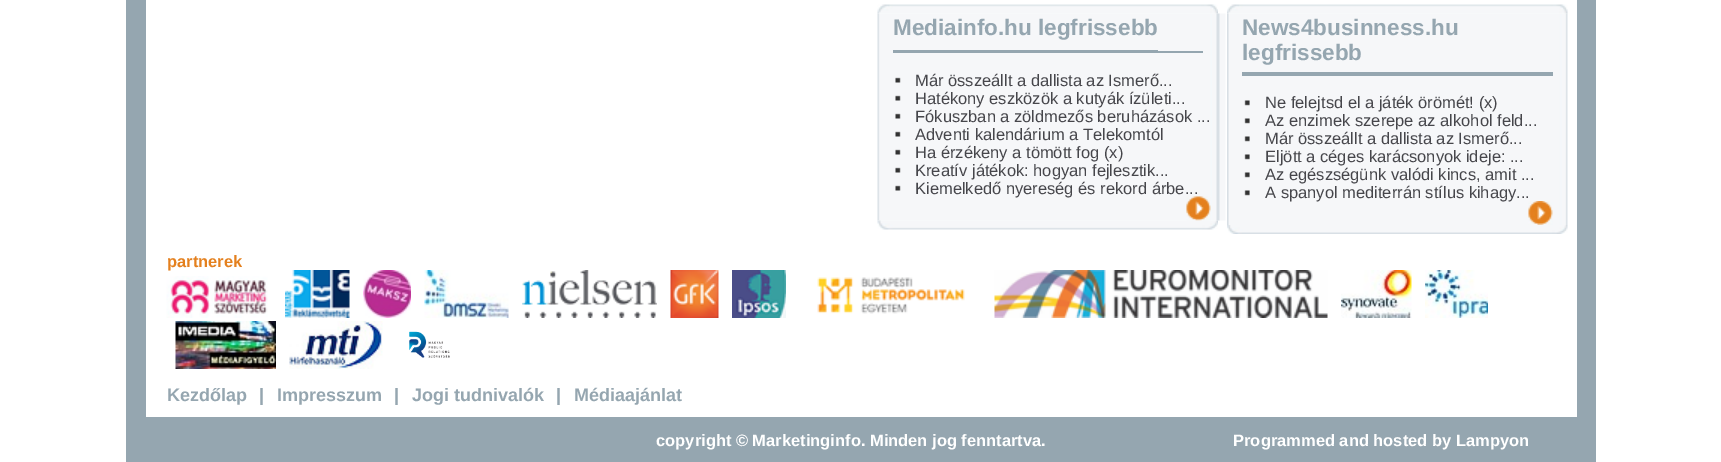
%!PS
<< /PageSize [1721 462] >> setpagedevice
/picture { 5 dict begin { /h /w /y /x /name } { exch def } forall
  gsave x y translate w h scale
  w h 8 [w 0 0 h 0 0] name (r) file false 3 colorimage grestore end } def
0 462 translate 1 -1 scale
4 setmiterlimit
1 setgray
0 0 1721 462 rectfill
0.584 0.651 0.69 setrgbcolor
126 0 1470 462 rectfill
1 setgray
146 0 1431 417 rectfill
(img2.rgb) 877 13 349 208 picture
(img1.rgb) 877 4 341 10 picture
0.584 0.651 0.69 setrgbcolor
1158 51 45 2 rectfill
893 50 265 3 rectfill
/LiberationSans-Bold [22.5 0 0 -22.5 0 0] selectfont
893 35 moveto (Mediainfo.hu legfrissebb) show
(img3.rgb) 895 77 6 6 picture
/LiberationSans-Regular [16.5 0 0 -16.5 0 0] selectfont
0.275 0.275 0.294 setrgbcolor
915 86 moveto (Már összeállt a dallista az Ismerő...) show
(img3.rgb) 895 95 6 6 picture
915 104 moveto (Hatékony eszközök a kutyák ízületi...) show
(img3.rgb) 895 113 6 6 picture
915 122 moveto (Fókuszban a zöldmezős beruházások ...) show
(img3.rgb) 895 131 6 6 picture
915 140 moveto (Adventi kalendárium a Telekomtól) show
(img3.rgb) 895 149 6 6 picture
915 158 moveto (Ha érzékeny a tömött fog \(x\)) show
(img3.rgb) 895 167 6 6 picture
915 176 moveto (Kreatív játékok: hogyan fejlesztik...) show
(img3.rgb) 895 185 6 6 picture
(img4.rgb) 1186 196 25 25 picture
915 194 moveto (Kiemelkedő nyereség és rekord árbe...) show
(img5.rgb) 877 220 341 10 picture
(img7.rgb) 1227 13 341 212 picture
(img6.rgb) 1227 4 341 10 picture
0.584 0.651 0.69 setrgbcolor
1242 72 311 4 rectfill
/LiberationSans-Bold [22.5 0 0 -22.5 0 0] selectfont
1242 35 moveto (News4businness.hu) show
1242 60 moveto (legfrissebb) show
(img8.rgb) 1244 100 6 6 picture
/LiberationSans-Regular [16.5 0 0 -16.5 0 0] selectfont
0.275 0.275 0.294 setrgbcolor
1265 108 moveto (Ne felejtsd el a játék örömét! \(x\)) show
(img8.rgb) 1244 118 6 6 picture
1265 126 moveto (Az enzimek szerepe az alkohol feld...) show
(img8.rgb) 1244 136 6 6 picture
1265 144 moveto (Már összeállt a dallista az Ismerő...) show
(img8.rgb) 1244 154 6 6 picture
1265 162 moveto (Eljött a céges karácsonyok ideje: ...) show
(img8.rgb) 1244 172 6 6 picture
1265 180 moveto (Az egészségünk valódi kincs, amit ...) show
(img8.rgb) 1244 190 6 6 picture
(img9.rgb) 1528 201 25 24 picture
1265 198 moveto (A spanyol mediterrán stílus kihagy...) show
(img10.rgb) 1227 225 341 9 picture
/LiberationSans-Bold [16.5 0 0 -16.5 0 0] selectfont
0.894 0.502 0.118 setrgbcolor
167 267 moveto (partnerek) show
(img11.rgb) 166 276 102 42 picture
(img12.rgb) 285 270 65 48 picture
(img13.rgb) 363 270 48 48 picture
(img14.rgb) 424 270 85 48 picture
(img15.rgb) 522 270 135 48 picture
(img16.rgb) 670 270 49 48 picture
(img17.rgb) 732 270 54 48 picture
(img18.rgb) 817 277 148 37 picture
(img19.rgb) 994 270 334 48 picture
(img20.rgb) 1341 270 71 48 picture
(img21.rgb) 1425 270 63 48 picture
(img22.rgb) 175 321 101 48 picture
(img23.rgb) 289 321 94 48 picture
(img24.rgb) 409 331 41 27 picture
/LiberationSans-Bold [18 0 0 -18 0 0] selectfont
0.584 0.651 0.69 setrgbcolor
167 401 moveto (Kezdőlap) show
259 401 moveto (|) show
277 401 moveto (Impresszum) show
394 401 moveto (|) show
412 401 moveto (Jogi tudnivalók) show
556 401 moveto (|) show
574 401 moveto (Médiaajánlat) show
/LiberationSans-Bold [16.5 0 0 -16.5 0 0] selectfont
1 setgray
656 446 moveto (copyright © Marketinginfo. Minden jog fenntartva.) show
1233 446 moveto (Programmed and hosted by Lampyon) show
showpage
